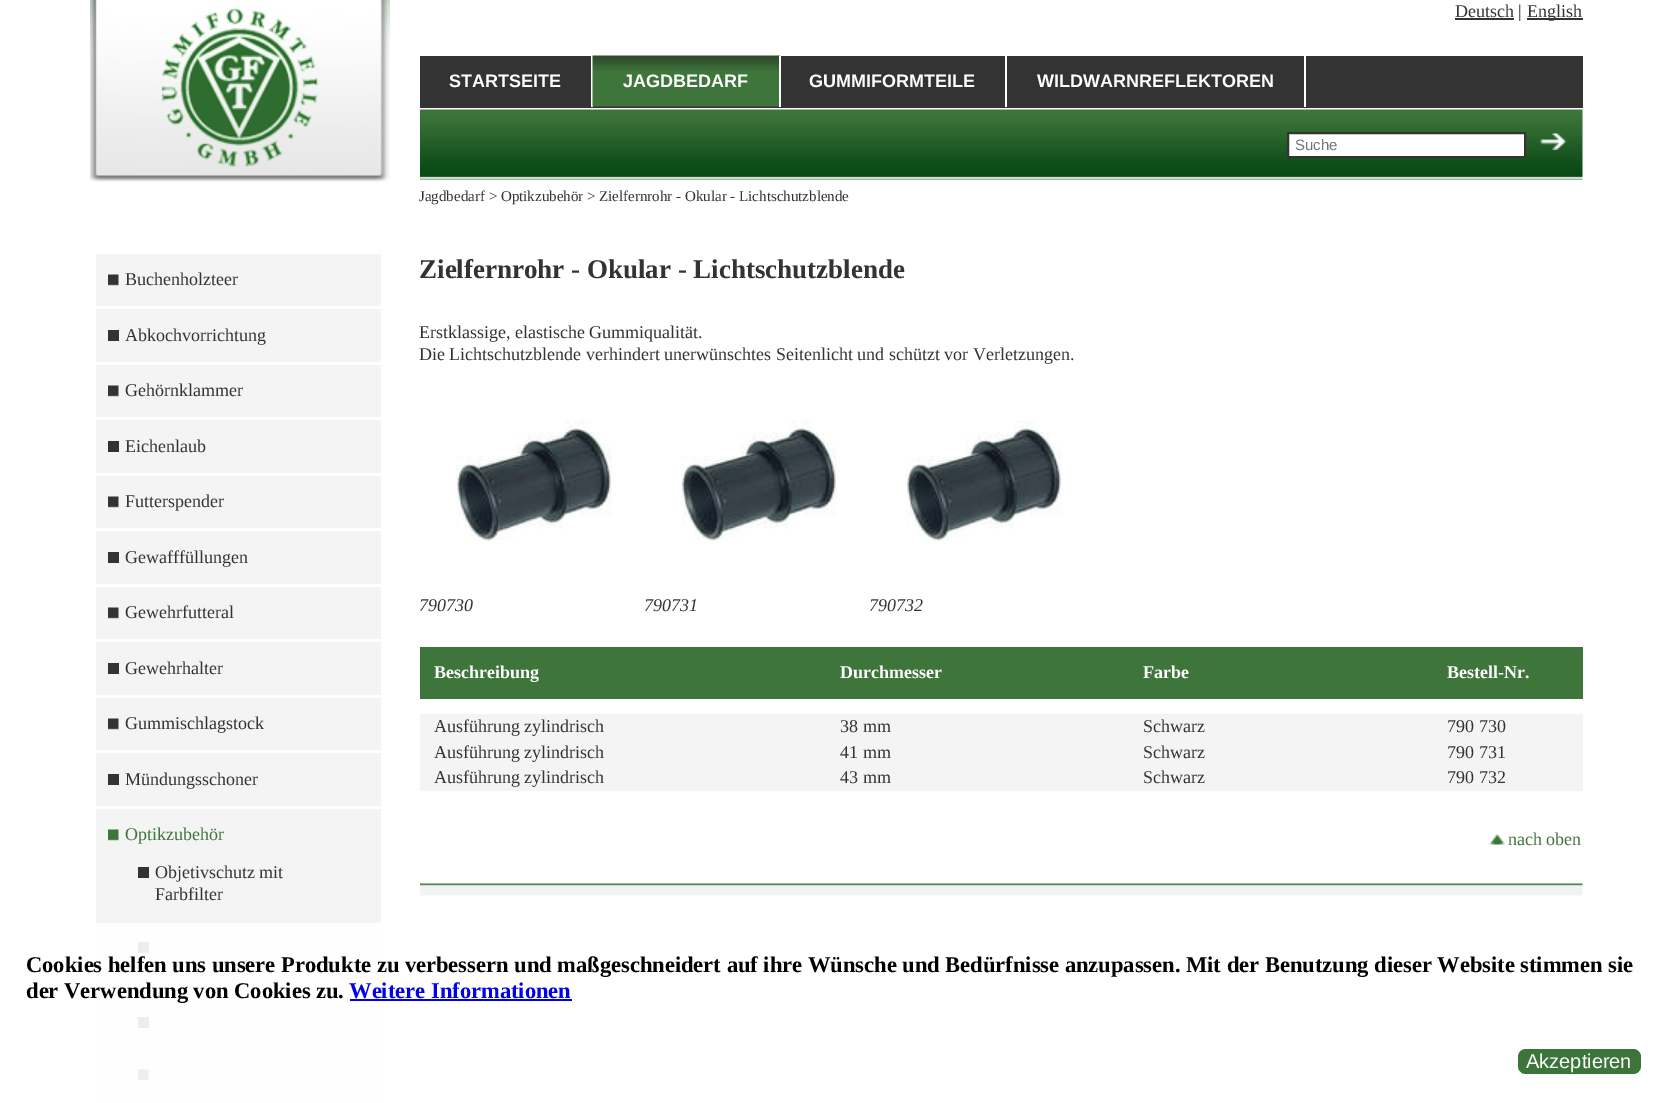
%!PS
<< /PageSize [1670 1103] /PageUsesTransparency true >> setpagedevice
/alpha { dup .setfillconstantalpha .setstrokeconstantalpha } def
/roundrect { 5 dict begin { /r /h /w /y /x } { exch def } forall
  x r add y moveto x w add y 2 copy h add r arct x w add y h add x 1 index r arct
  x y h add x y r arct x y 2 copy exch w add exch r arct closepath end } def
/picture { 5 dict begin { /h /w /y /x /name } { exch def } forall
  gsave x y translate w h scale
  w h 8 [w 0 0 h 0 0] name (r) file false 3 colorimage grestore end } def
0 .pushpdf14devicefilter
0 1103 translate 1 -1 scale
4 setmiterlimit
1 setgray
0 0 1670 1103 rectfill
(img1.rgb) 90 0 300 182 picture
0.953 0.957 0.953 setrgbcolor
96 254 285 52 rectfill
(img2.rgb) 108 274 11 12 picture
/LiberationSerif-Regular [18 0 0 -18 0 0] selectfont
0.2 setgray
125 285 moveto (Buchenholzteer) show
0.953 0.957 0.953 setrgbcolor
96 309 285 53 rectfill
0.2 setgray
108 330 11 11 rectfill
125 341 moveto (Abkochvorrichtung) show
0.953 0.957 0.953 setrgbcolor
96 365 285 52 rectfill
(img2.rgb) 108 385 11 12 picture
0.2 setgray
125 396 moveto (Gehörnklammer) show
0.953 0.957 0.953 setrgbcolor
96 420 285 53 rectfill
0.2 setgray
108 441 11 11 rectfill
125 452 moveto (Eichenlaub) show
0.953 0.957 0.953 setrgbcolor
96 476 285 52 rectfill
(img2.rgb) 108 496 11 12 picture
0.2 setgray
125 507 moveto (Futterspender) show
0.953 0.957 0.953 setrgbcolor
96 531 285 53 rectfill
0.2 setgray
108 552 11 11 rectfill
125 563 moveto (Gewafffüllungen) show
0.953 0.957 0.953 setrgbcolor
96 587 285 52 rectfill
(img2.rgb) 108 607 11 12 picture
0.2 setgray
125 618 moveto (Gewehrfutteral) show
0.953 0.957 0.953 setrgbcolor
96 642 285 53 rectfill
0.2 setgray
108 663 11 11 rectfill
125 674 moveto (Gewehrhalter) show
0.953 0.957 0.953 setrgbcolor
96 698 285 52 rectfill
(img2.rgb) 108 718 11 12 picture
0.2 setgray
125 729 moveto (Gummischlagstock) show
0.953 0.957 0.953 setrgbcolor
96 753 285 53 rectfill
0.2 setgray
108 774 11 11 rectfill
125 785 moveto (Mündungsschoner) show
0.953 0.957 0.953 setrgbcolor
96 809 285 294 rectfill
(img3.rgb) 108 829 11 12 picture
0.243 0.459 0.231 setrgbcolor
125 840 moveto (Optikzubehör) show
0.2 setgray
138 867 11 11 rectfill
155 878 moveto (Objetivschutz mit) show
155 900 moveto (Farbfilter) show
138 942 11 11 rectfill
138 1017 11 11 rectfill
(img2.rgb) 138 1069 11 12 picture
1455 18 59 2 rectfill
1455 17 moveto (Deutsch |) show
1527 18 56 2 rectfill
1527 17 moveto (English) show
420 56 1163 52 rectfill
1 setgray
591 56 2 51 rectfill
/LiberationSans-Bold [18 0 0 -18 0 0] selectfont
449 87 moveto (STARTSEITE) show
(img4.rgb) 592 55 188 52 picture
779 56 2 51 rectfill
623 87 moveto (JAGDBEDARF) show
1005 56 2 51 rectfill
809 87 moveto (GUMMIFORMTEILE) show
1304 56 2 51 rectfill
1037 87 moveto (WILDWARNREFLEKTOREN) show
(img5.rgb) 420 109 1163 71 picture
newpath 1288 133 moveto 1525 133 lineto 1525 157 lineto 1288 157 lineto closepath gsave fill grestore
0.2 setgray
2 setlinewidth
stroke
/LiberationSans-Regular [15 0 0 -15 0 0] selectfont
0.459 setgray
1295 150 moveto (Suche) show
(img6.rgb) 1540 133 27 17 picture
/LiberationSerif-Regular [15 0 0 -15 0 0] selectfont
0.2 setgray
419 201 moveto (Jagdbedarf > Optikzubehör > Zielfernrohr - Okular - Lichtschutzblende) show
/LiberationSerif-Bold [27 0 0 -27 0 0] selectfont
419 278 moveto (Zielfernrohr - Okular - Lichtschutzblende) show
/LiberationSerif-Regular [18 0 0 -18 0 0] selectfont
419 338 moveto (Erstklassige, elastische Gummiqualität.) show
419 360 moveto (Die Lichtschutzblende verhindert unerwünschtes Seitenlicht und schützt vor Verletzungen.) show
(img7.rgb) 456 420 156 121 picture
/LiberationSerif-Italic [18 0 0 -18 0 0] selectfont
419 611 moveto (790730) show
(img8.rgb) 681 420 156 121 picture
644 611 moveto (790731) show
(img8.rgb) 906 420 156 121 picture
869 611 moveto (790732) show
0.243 0.459 0.231 setrgbcolor
420 647 1163 52 rectfill
/LiberationSerif-Bold [18 0 0 -18 0 0] selectfont
1 setgray
434 678 moveto (Beschreibung) show
840 678 moveto (Durchmesser) show
1143 678 moveto (Farbe) show
1447 678 moveto (Bestell-Nr.) show
0.953 0.957 0.953 setrgbcolor
420 714 1163 26 rectfill
/LiberationSerif-Regular [18 0 0 -18 0 0] selectfont
0.2 setgray
434 732 moveto (Ausführung zylindrisch) show
840 732 moveto (38 mm) show
1143 732 moveto (Schwarz) show
1447 732 moveto (790 730) show
0.953 0.957 0.953 setrgbcolor
420 740 1163 25 rectfill
0.2 setgray
434 758 moveto (Ausführung zylindrisch) show
840 758 moveto (41 mm) show
1143 758 moveto (Schwarz) show
1447 758 moveto (790 731) show
0.953 0.957 0.953 setrgbcolor
420 765 1163 26 rectfill
0.2 setgray
434 783 moveto (Ausführung zylindrisch) show
840 783 moveto (43 mm) show
1143 783 moveto (Schwarz) show
1447 783 moveto (790 732) show
(img9.rgb) 1489 834 16 11 picture
0.243 0.459 0.231 setrgbcolor
1508 845 moveto (nach oben) show
(img10.rgb) 420 883 1163 13 picture
0.91 alpha
1 setgray
newpath 14 923 moveto 1657 923 lineto 1664.5 923 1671 929.5 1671 937 curveto 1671 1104 lineto 0 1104 lineto 0 937 lineto 0 929.5 6.5 923 14 923 curveto closepath fill
/LiberationSerif-Bold [22.5 0 0 -22.5 0 0] selectfont
1 alpha
0 setgray
26 972 moveto (Cookies helfen uns unsere Produkte zu verbessern und maßgeschneidert auf ihre Wünsche und Bedürfnisse anzupassen. Mit der Benutzung dieser Website stimmen sie) show
26 998 moveto (der Verwendung von Cookies zu.) show
0 0 0.933 setrgbcolor
349 998 moveto (Weitere Informationen) show
350 999 222 2 rectfill
0.231 0.459 0.227 setrgbcolor
1518 1049 123 25 8 roundrect fill
/LiberationSans-Regular [20 0 0 -20 0 0] selectfont
1 setgray
1526 1068 moveto (Akzeptieren) show
.poppdf14devicefilter showpage
